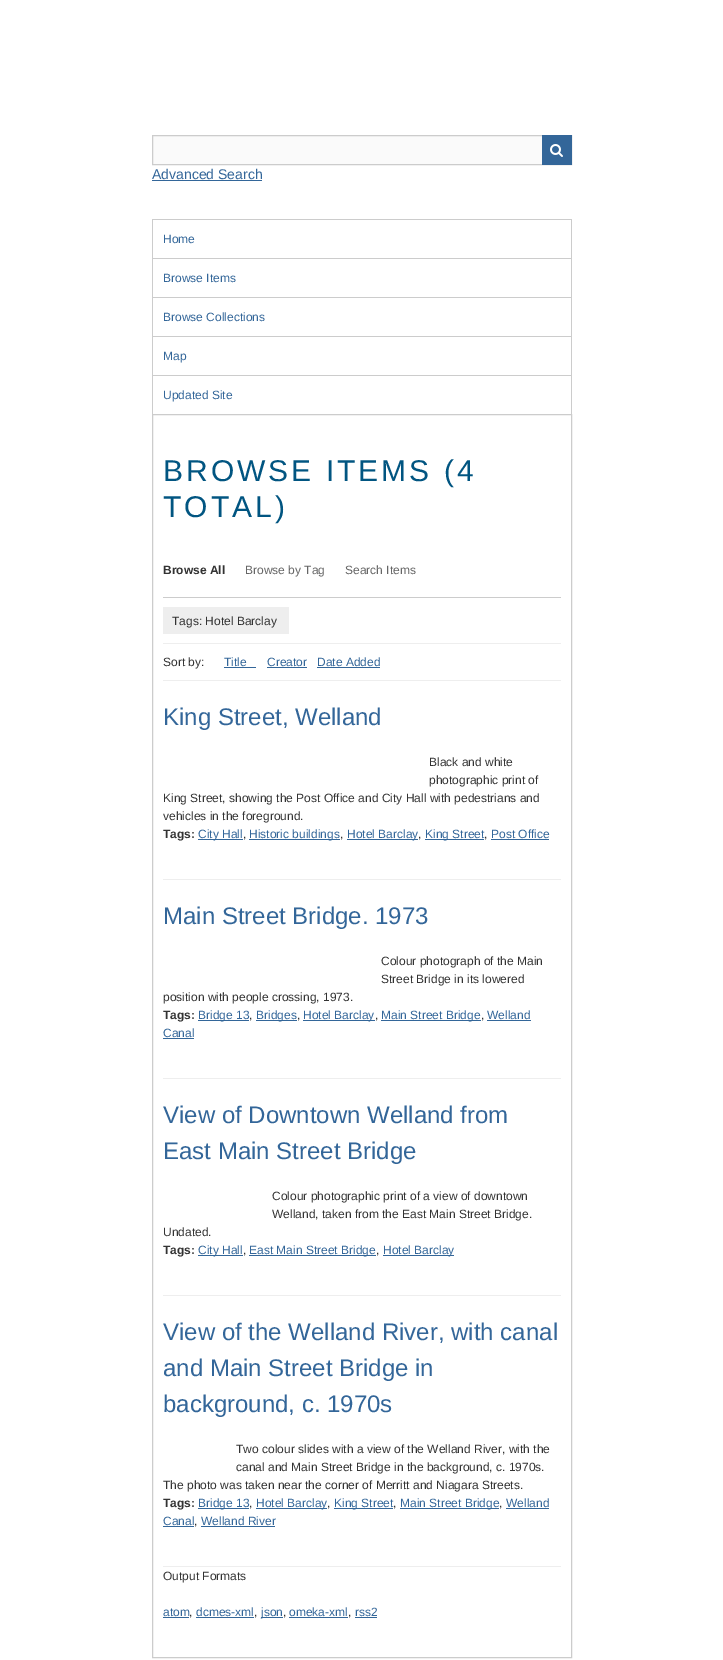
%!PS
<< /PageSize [723 1660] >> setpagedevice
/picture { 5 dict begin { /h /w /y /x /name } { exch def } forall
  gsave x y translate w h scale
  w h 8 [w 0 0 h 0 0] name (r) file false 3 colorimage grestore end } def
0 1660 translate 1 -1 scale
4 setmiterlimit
1 setgray
0 0 723 1660 rectfill
0.98 setgray
153 136 389 28 rectfill
0.8 setgray
152.5 135.5 419 29 rectstroke
0.2 0.4 0.6 setrgbcolor
542 135 30 30 rectfill
(img1.rgb) 550 144 13 13 picture
/LiberationSans-Regular [14 0 0 -14 0 0] selectfont
152 179 moveto (Advanced Search) show
152 180 110 1 rectfill
0.8 setgray
152 219 420 1 rectfill
571 219 1 39 rectfill
152 219 1 39 rectfill
/LiberationSans-Regular [12 0 0 -12 0 0] selectfont
0.2 0.4 0.6 setrgbcolor
163 243 moveto (Home) show
0.8 setgray
152 258 420 1 rectfill
571 258 1 39 rectfill
152 258 1 39 rectfill
0.2 0.4 0.6 setrgbcolor
163 282 moveto (Browse Items) show
0.8 setgray
152 297 420 1 rectfill
571 297 1 39 rectfill
152 297 1 39 rectfill
0.2 0.4 0.6 setrgbcolor
163 321 moveto (Browse Collections) show
0.8 setgray
152 336 420 1 rectfill
571 336 1 39 rectfill
152 336 1 39 rectfill
0.2 0.4 0.6 setrgbcolor
163 360 moveto (Map) show
0.8 setgray
152 375 420 1 rectfill
571 375 1 39 rectfill
152 375 1 39 rectfill
0.2 0.4 0.6 setrgbcolor
163 399 moveto (Updated Site) show
0.8 setgray
152.5 414.5 419 1243 rectstroke
/LiberationSans-Regular [30 0 0 -30 0 0] selectfont
0.004 0.333 0.506 setrgbcolor
163 481 moveto 3 0 (BROWSE ITEMS \(4) ashow
163 517 moveto 3 0 (TOTAL\)) ashow
0.8 setgray
163 597 398 1 rectfill
/LiberationSans-Bold [12 0 0 -12 0 0] selectfont
0.2 setgray
163 574 moveto (Browse All) show
/LiberationSans-Regular [12 0 0 -12 0 0] selectfont
0.4 setgray
245 574 moveto (Browse by Tag) show
345 574 moveto (Search Items) show
0.933 setgray
163 643 398 1 rectfill
163 607 126 27 rectfill
0.2 setgray
172 625 moveto (Tags: Hotel Barclay) show
163 666 moveto (Sort by:) show
0.2 0.4 0.6 setrgbcolor
224 666 moveto (Title) show
224 667 32 1 rectfill
/FontAwesome-Regular [12 0 0 -12 0 0] selectfont
250 666 moveto () show
/LiberationSans-Regular [12 0 0 -12 0 0] selectfont
267 666 moveto (Creator) show
267 667 40 1 rectfill
317 666 moveto (Date Added) show
317 667 63 1 rectfill
0.933 setgray
163 680 398 1 rectfill
163 879 398 1 rectfill
/LiberationSans-Regular [24 0 0 -24 0 0] selectfont
0.2 0.4 0.6 setrgbcolor
163 725 moveto (King Street, Welland) show
/LiberationSans-Regular [12 0 0 -12 0 0] selectfont
0.2 setgray
429 766 moveto (Black and white) show
429 784 moveto (photographic print of) show
163 802 moveto (King Street, showing the Post Office and City Hall with pedestrians and) show
163 820 moveto (vehicles in the foreground.) show
/LiberationSans-Bold [12 0 0 -12 0 0] selectfont
163 838 moveto (Tags:) show
0.2 0.4 0.6 setrgbcolor
198 839 45 1 rectfill
/LiberationSans-Regular [12 0 0 -12 0 0] selectfont
198 838 moveto (City Hall) show
0.2 setgray
243 838 moveto (,) show
0.2 0.4 0.6 setrgbcolor
249 839 91 1 rectfill
249 838 moveto (Historic buildings) show
0.2 setgray
340 838 moveto (,) show
0.2 0.4 0.6 setrgbcolor
347 839 71 1 rectfill
347 838 moveto (Hotel Barclay) show
0.2 setgray
418 838 moveto (,) show
0.2 0.4 0.6 setrgbcolor
425 839 59 1 rectfill
425 838 moveto (King Street) show
0.2 setgray
484 838 moveto (,) show
0.2 0.4 0.6 setrgbcolor
491 838 moveto (Post Office) show
491 839 58 1 rectfill
0.933 setgray
163 1078 398 1 rectfill
/LiberationSans-Regular [24 0 0 -24 0 0] selectfont
0.2 0.4 0.6 setrgbcolor
163 924 moveto (Main Street Bridge. 1973) show
/LiberationSans-Regular [12 0 0 -12 0 0] selectfont
0.2 setgray
381 965 moveto (Colour photograph of the Main) show
381 983 moveto (Street Bridge in its lowered) show
163 1001 moveto (position with people crossing, 1973.) show
/LiberationSans-Bold [12 0 0 -12 0 0] selectfont
163 1019 moveto (Tags:) show
0.2 0.4 0.6 setrgbcolor
198 1020 51 1 rectfill
/LiberationSans-Regular [12 0 0 -12 0 0] selectfont
198 1019 moveto (Bridge 13) show
0.2 setgray
249 1019 moveto (,) show
0.2 0.4 0.6 setrgbcolor
256 1020 41 1 rectfill
256 1019 moveto (Bridges) show
0.2 setgray
297 1019 moveto (,) show
0.2 0.4 0.6 setrgbcolor
303 1020 72 1 rectfill
303 1019 moveto (Hotel Barclay) show
0.2 setgray
375 1019 moveto (,) show
0.2 0.4 0.6 setrgbcolor
381 1020 100 1 rectfill
381 1019 moveto (Main Street Bridge) show
0.2 setgray
481 1019 moveto (,) show
0.2 0.4 0.6 setrgbcolor
487 1019 moveto (Welland) show
487 1020 44 1 rectfill
163 1037 moveto (Canal) show
163 1038 31 1 rectfill
0.933 setgray
163 1295 398 1 rectfill
/LiberationSans-Regular [24 0 0 -24 0 0] selectfont
0.2 0.4 0.6 setrgbcolor
163 1123 moveto (View of Downtown Welland from) show
163 1159 moveto (East Main Street Bridge) show
/LiberationSans-Regular [12 0 0 -12 0 0] selectfont
0.2 setgray
272 1200 moveto (Colour photographic print of a view of downtown) show
272 1218 moveto (Welland, taken from the East Main Street Bridge.) show
163 1236 moveto (Undated.) show
/LiberationSans-Bold [12 0 0 -12 0 0] selectfont
163 1254 moveto (Tags:) show
0.2 0.4 0.6 setrgbcolor
198 1255 45 1 rectfill
/LiberationSans-Regular [12 0 0 -12 0 0] selectfont
198 1254 moveto (City Hall) show
0.2 setgray
243 1254 moveto (,) show
0.2 0.4 0.6 setrgbcolor
249 1255 127 1 rectfill
249 1254 moveto (East Main Street Bridge) show
0.2 setgray
376 1254 moveto (,) show
0.2 0.4 0.6 setrgbcolor
383 1255 71 1 rectfill
383 1254 moveto (Hotel Barclay) show
0.933 setgray
163 1566 398 1 rectfill
/LiberationSans-Regular [24 0 0 -24 0 0] selectfont
0.2 0.4 0.6 setrgbcolor
163 1340 moveto (View of the Welland River, with canal) show
163 1376 moveto (and Main Street Bridge in) show
163 1412 moveto (background, c. 1970s) show
/LiberationSans-Regular [12 0 0 -12 0 0] selectfont
0.2 setgray
236 1453 moveto (Two colour slides with a view of the Welland River, with the) show
236 1471 moveto (canal and Main Street Bridge in the background, c. 1970s.) show
163 1489 moveto (The photo was taken near the corner of Merritt and Niagara Streets.) show
/LiberationSans-Bold [12 0 0 -12 0 0] selectfont
163 1507 moveto (Tags:) show
0.2 0.4 0.6 setrgbcolor
198 1508 51 1 rectfill
/LiberationSans-Regular [12 0 0 -12 0 0] selectfont
198 1507 moveto (Bridge 13) show
0.2 setgray
249 1507 moveto (,) show
0.2 0.4 0.6 setrgbcolor
256 1508 71 1 rectfill
256 1507 moveto (Hotel Barclay) show
0.2 setgray
327 1507 moveto (,) show
0.2 0.4 0.6 setrgbcolor
334 1508 59 1 rectfill
334 1507 moveto (King Street) show
0.2 setgray
393 1507 moveto (,) show
0.2 0.4 0.6 setrgbcolor
400 1508 99 1 rectfill
400 1507 moveto (Main Street Bridge) show
0.2 setgray
499 1507 moveto (,) show
0.2 0.4 0.6 setrgbcolor
506 1507 moveto (Welland) show
506 1508 43 1 rectfill
163 1525 moveto (Canal) show
163 1526 31 1 rectfill
0.2 setgray
194 1525 moveto (,) show
0.2 0.4 0.6 setrgbcolor
201 1525 moveto (Welland River) show
201 1526 74 1 rectfill
0.2 setgray
163 1580 moveto (Output Formats) show
0.2 0.4 0.6 setrgbcolor
163 1616 moveto (atom) show
163 1617 26 1 rectfill
0.2 setgray
189 1616 moveto (,) show
0.2 0.4 0.6 setrgbcolor
196 1616 moveto (dcmes-xml) show
196 1617 58 1 rectfill
0.2 setgray
254 1616 moveto (,) show
0.2 0.4 0.6 setrgbcolor
261 1617 22 1 rectfill
261 1616 moveto (json) show
0.2 setgray
283 1616 moveto (,) show
0.2 0.4 0.6 setrgbcolor
289 1616 moveto (omeka-xml) show
289 1617 59 1 rectfill
0.2 setgray
348 1616 moveto (,) show
0.2 0.4 0.6 setrgbcolor
355 1616 moveto (rss2) show
355 1617 22 1 rectfill
showpage
